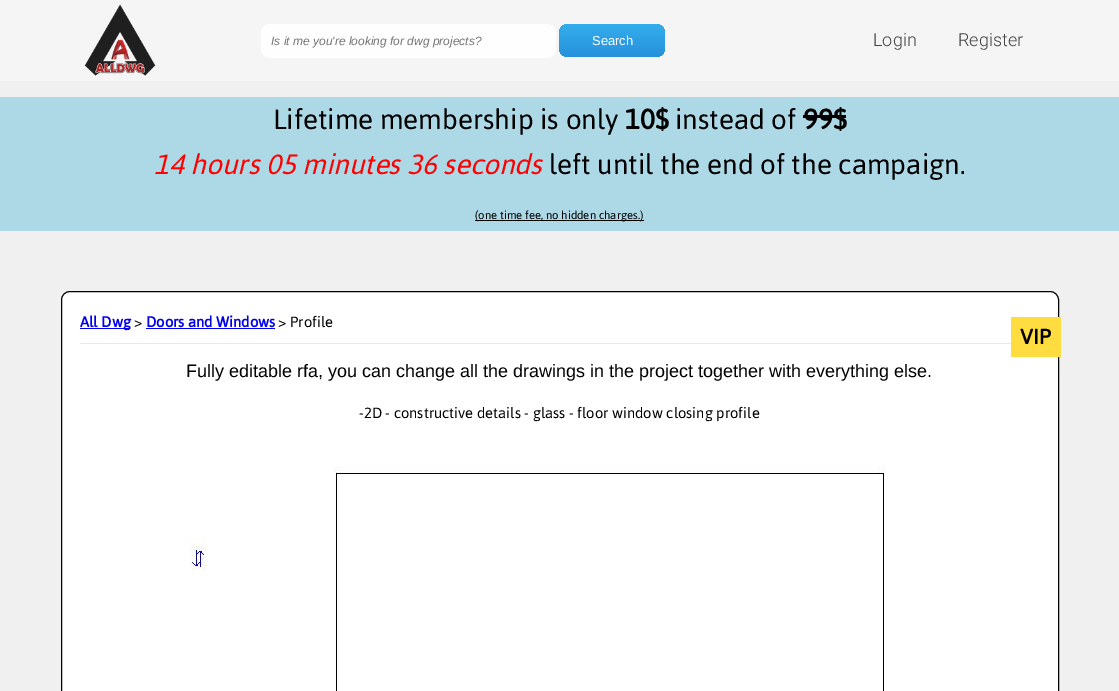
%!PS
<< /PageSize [1119 691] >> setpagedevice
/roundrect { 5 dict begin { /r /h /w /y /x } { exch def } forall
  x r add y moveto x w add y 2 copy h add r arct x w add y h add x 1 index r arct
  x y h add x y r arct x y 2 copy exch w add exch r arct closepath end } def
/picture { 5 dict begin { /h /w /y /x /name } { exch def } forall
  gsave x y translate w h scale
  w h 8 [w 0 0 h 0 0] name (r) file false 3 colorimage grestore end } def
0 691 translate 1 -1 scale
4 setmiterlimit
0.941 setgray
0 0 1119 691 rectfill
0.961 setgray
0 0 1119 81 rectfill
(img1.rgb) 84 4 72 72 picture
0.996 setgray
261 24 295 34 9 roundrect fill
/LiberationSans-Italic [12 0 0 -12 0 0] selectfont
0.459 setgray
271 45 moveto (Is it me you're looking for dwg projects?) show
gsave 559 24 106 33 9 roundrect clip newpath
<< /ShadingType 2 /ColorSpace /DeviceRGB /Coords [612 24 612 57] /Extend [true true] /Function << /FunctionType 2 /Domain [0 1] /C0 [0.204 0.678 0.925] /C1 [0.149 0.569 0.863] /N 1 >> >> shfill grestore
/LiberationSans-Regular [13 0 0 -13 0 0] selectfont
1 setgray
592 45 moveto (Search) show
/Roboto-Light [18 0 0 -18 0 0] selectfont
0.267 setgray
873 46 moveto (Login) show
958 46 moveto (Register) show
0.678 0.847 0.902 setrgbcolor
0 97 1119 134 rectfill
/Jaldi-Regular [32 0 0 -32 0 0] selectfont
0 setgray
273 129 moveto (Lifetime membership is only) show
/Jaldi-Bold [32 0 0 -32 0 0] selectfont
625 129 moveto (10$) show
/Jaldi-Regular [32 0 0 -32 0 0] selectfont
675 129 moveto (instead of) show
/Jaldi-Bold [32 0 0 -32 0 0] selectfont
803 129 moveto (99$) show
803 115 43 3 rectfill
/Jaldi-Italic [32 0 0 -32 0 0] selectfont
1 0 0 setrgbcolor
154 174 moveto (14 hours 05 minutes 36 seconds) show
/Jaldi-Regular [32 0 0 -32 0 0] selectfont
0 setgray
549 174 moveto (left until the end of the campaign.) show
475 220 169 1 rectfill
/Jaldi-Regular [13 0 0 -13 0 0] selectfont
475 219 moveto (\(one time fee, no hidden charges.\)) show
1 setgray
61.5 291.5 997 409 8.5 roundrect gsave fill grestore
0 setgray
stroke
0 0 0.933 setrgbcolor
80 328 50 1 rectfill
/Jaldi-Bold [17 0 0 -17 0 0] selectfont
80 327 moveto (All Dwg) show
/Jaldi-Regular [17 0 0 -17 0 0] selectfont
0 setgray
134 327 moveto (>) show
/Jaldi-Bold [17 0 0 -17 0 0] selectfont
0 0 0.933 setrgbcolor
146 327 moveto (Doors and Windows) show
146 328 129 1 rectfill
/Jaldi-Regular [17 0 0 -17 0 0] selectfont
0 setgray
278 327 moveto (> Profile) show
0.89 0.922 0.933 setrgbcolor
80 343 931 1 rectfill
1 0.863 0.251 setrgbcolor
1011 317 50 40 rectfill
/Jaldi-Bold [24 0 0 -24 0 0] selectfont
0 setgray
1020 344 moveto (VIP) show
/LiberationSans-Regular [18 0 0 -18 0 0] selectfont
186 377 moveto (Fully editable rfa, you can change all the drawings in the project together with everything else.) show
/Jaldi-Regular [17 0 0 -17 0 0] selectfont
359 418 moveto (-2D - constructive details - glass - floor window closing profile) show
(img2.rgb) 189 466 697 225 picture
showpage
